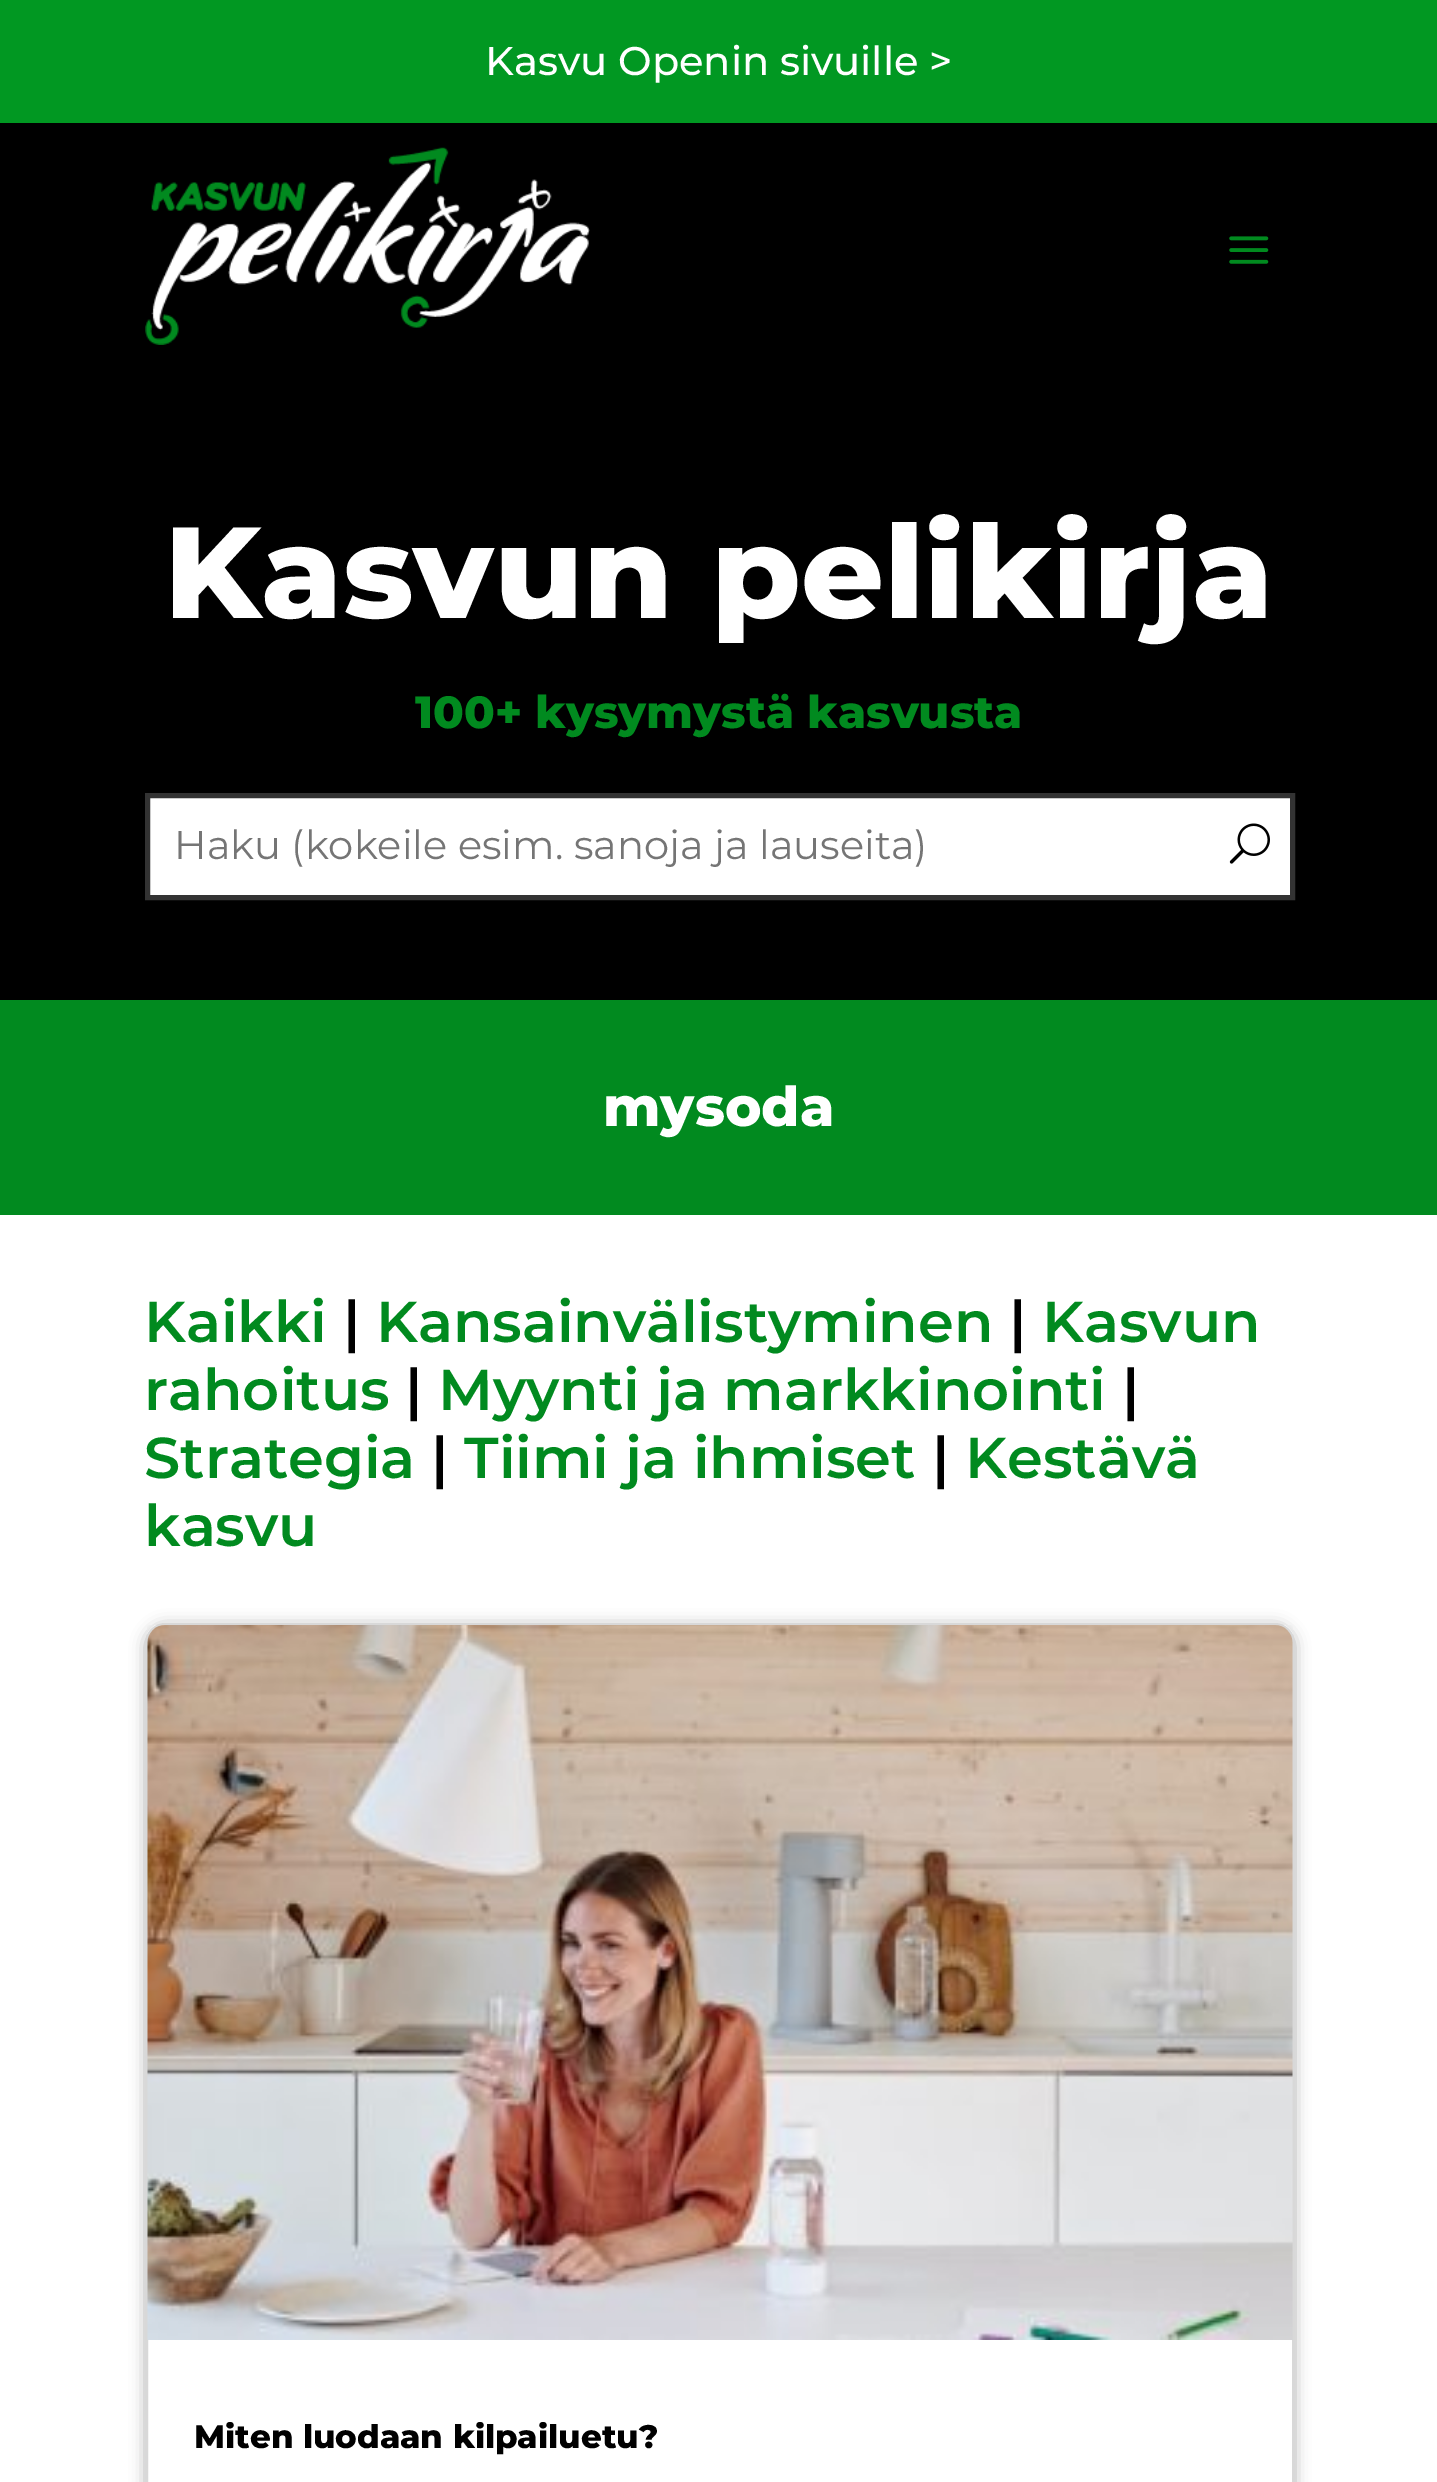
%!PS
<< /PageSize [1437 2482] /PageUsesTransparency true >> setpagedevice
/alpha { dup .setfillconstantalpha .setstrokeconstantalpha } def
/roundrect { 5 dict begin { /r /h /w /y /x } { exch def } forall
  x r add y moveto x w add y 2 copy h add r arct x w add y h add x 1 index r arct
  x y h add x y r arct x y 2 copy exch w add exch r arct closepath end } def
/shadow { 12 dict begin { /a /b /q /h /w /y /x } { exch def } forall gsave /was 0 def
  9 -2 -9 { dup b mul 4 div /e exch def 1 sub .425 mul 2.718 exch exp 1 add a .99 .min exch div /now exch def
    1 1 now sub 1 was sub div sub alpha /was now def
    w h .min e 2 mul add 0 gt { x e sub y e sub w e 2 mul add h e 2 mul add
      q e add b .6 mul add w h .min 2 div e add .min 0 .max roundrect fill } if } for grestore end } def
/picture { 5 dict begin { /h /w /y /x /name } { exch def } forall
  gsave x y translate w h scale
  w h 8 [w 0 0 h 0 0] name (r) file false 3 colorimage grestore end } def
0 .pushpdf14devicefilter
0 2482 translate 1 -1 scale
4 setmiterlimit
1 setgray
0 0 1437 2482 rectfill
0.004 0.596 0.133 setrgbcolor
0 0 1437 123 rectfill
/Montserrat-Medium [40 0 0 -40 0 0] selectfont
1 setgray
485 75 moveto (Kasvu Openin sivuille >) show
0 setgray
0 123 1437 877 rectfill
(img1.rgb) 145 147 445 198 picture
(img2.rgb) 1229 236 40 28 picture
/Montserrat-ExtraBold [129.4 0 0 -129.4 0 0] selectfont
1 setgray
164 618 moveto (Kasvun pelikirja) show
/Montserrat-ExtraBold [45 0 0 -45 0 0] selectfont
0.004 0.541 0.122 setrgbcolor
415 728 moveto (100+ kysymystä kasvusta) show
1 setgray
newpath 147.5 795.5 moveto 1292.5 795.5 lineto 1292.5 897.5 lineto 147.5 897.5 lineto closepath gsave fill grestore
0.2 setgray
5 setlinewidth
stroke
/Montserrat-Regular [40 0 0 -40 0 0] selectfont
0.459 setgray
174 859 moveto (Haku \(kokeile esim. sanoja ja lauseita\)) show
(img3.rgb) 1229 823 41 41 picture
0.004 0.541 0.122 setrgbcolor
0 1000 1437 215 rectfill
/Montserrat-ExtraBold [55 0 0 -55 0 0] selectfont
1 setgray
603 1126 moveto (mysoda) show
/Montserrat-SemiBold [57.5 0 0 -57.5 0 0] selectfont
0.004 0.541 0.122 setrgbcolor
144 1342 moveto (Kaikki) show
0 setgray
343 1342 moveto (|) show
0.004 0.541 0.122 setrgbcolor
376 1342 moveto (Kansainvälistyminen) show
0 setgray
1009 1342 moveto (|) show
0.004 0.541 0.122 setrgbcolor
1042 1342 moveto (Kasvun) show
144 1410 moveto (rahoitus) show
0 setgray
405 1410 moveto (|) show
0.004 0.541 0.122 setrgbcolor
438 1410 moveto (Myynti ja markkinointi) show
0 setgray
1122 1410 moveto (|) show
0.004 0.541 0.122 setrgbcolor
144 1478 moveto (Strategia) show
0 setgray
431 1478 moveto (|) show
0.004 0.541 0.122 setrgbcolor
464 1478 moveto (Tiimi ja ihmiset) show
0 setgray
932 1478 moveto (|) show
0.004 0.541 0.122 setrgbcolor
965 1478 moveto (Kestävä) show
144 1546 moveto (kasvu) show
0 setgray
145 1625 1150 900 20 7.5 0.3 shadow
1 setgray
146.5 1624.5 1147 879 18.5 roundrect gsave fill grestore
0.847 setgray
3 setlinewidth
stroke
(img4.rgb) 147 1625 1146 715 picture
/Montserrat-ExtraBold [32.5 0 0 -32.5 0 0] selectfont
0 setgray
194 2448 moveto (Miten luodaan kilpailuetu?) show
.poppdf14devicefilter showpage
